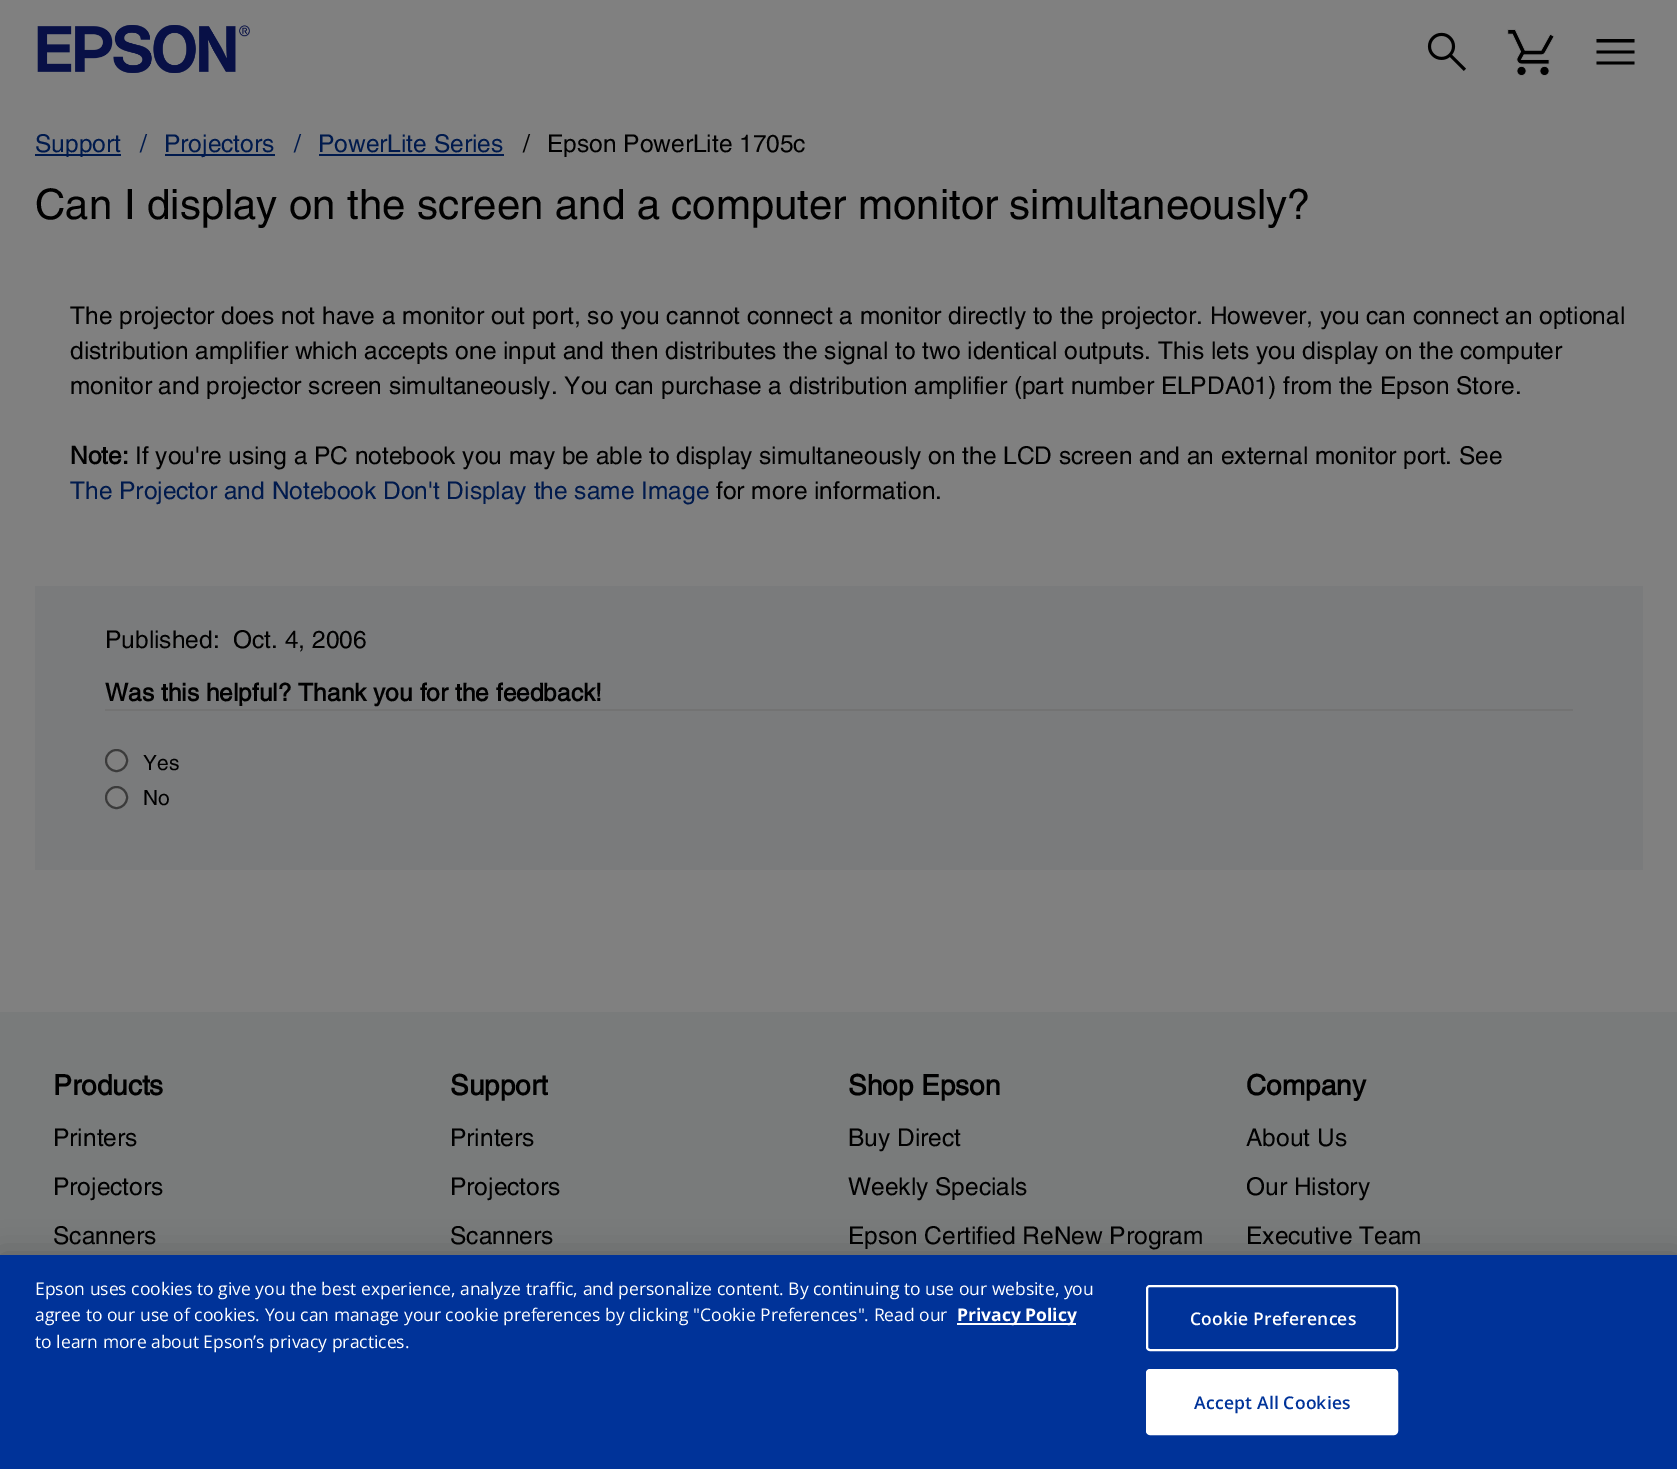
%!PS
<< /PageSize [1677 1469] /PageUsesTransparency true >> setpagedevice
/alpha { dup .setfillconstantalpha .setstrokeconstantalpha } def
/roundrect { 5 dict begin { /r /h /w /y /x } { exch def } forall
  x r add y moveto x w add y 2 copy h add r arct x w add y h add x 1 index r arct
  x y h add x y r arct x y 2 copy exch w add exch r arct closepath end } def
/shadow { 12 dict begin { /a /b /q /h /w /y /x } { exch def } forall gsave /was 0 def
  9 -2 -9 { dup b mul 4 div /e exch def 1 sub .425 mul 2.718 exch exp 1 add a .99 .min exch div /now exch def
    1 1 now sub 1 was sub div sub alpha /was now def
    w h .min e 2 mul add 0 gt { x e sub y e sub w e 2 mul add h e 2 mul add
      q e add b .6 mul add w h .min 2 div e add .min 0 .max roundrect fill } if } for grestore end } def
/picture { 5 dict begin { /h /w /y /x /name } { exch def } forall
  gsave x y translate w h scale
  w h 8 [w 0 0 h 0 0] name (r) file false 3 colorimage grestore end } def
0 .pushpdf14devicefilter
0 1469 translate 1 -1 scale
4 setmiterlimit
0.502 setgray
0 0 1677 1469 rectfill
(img1.rgb) 37 25 213 48 picture
(img2.rgb) 1427 32 39 39 picture
(img3.rgb) 1507 29 47 47 picture
0 setgray
newpath 1596.5 64.5 moveto 1596.5 61.5 lineto 1634.5 61.5 lineto 1634.5 64.5 lineto closepath 1596.5 53.5 moveto 1596.5 50.5 lineto 1634.5 50.5 lineto 1634.5 53.5 lineto closepath 1596.5 42.5 moveto 1596.5 39 lineto 1634.5 39 lineto 1634.5 42.5 lineto closepath fill
0 0.102 0.302 setrgbcolor
35 154 86 2 rectfill
/Helvetica-Regular [24.5 0 0 -24.5 0 0] selectfont
35 152 moveto (Support) show
140 152 moveto (/) show
165 154 110 2 rectfill
164 152 moveto (Projectors) show
294 152 moveto (/) show
318 152 moveto (PowerLite Series) show
319 154 185 2 rectfill
0 setgray
523 152 moveto (/) show
547 152 moveto (Epson PowerLite 1705c) show
/Helvetica-Regular [41.95 0 0 -41.95 0 0] selectfont
35 219 moveto (Can I display on the screen and a computer monitor simultaneously?) show
/Helvetica-Regular [24.5 0 0 -24.5 0 0] selectfont
70 324 moveto (The projector does not have a monitor out port, so you cannot connect a monitor directly to the projector. However, you can connect an optional) show
70 359 moveto (distribution amplifier which accepts one input and then distributes the signal to two identical outputs. This lets you display on the computer) show
70 394 moveto (monitor and projector screen simultaneously. You can purchase a distribution amplifier \(part number ELPDA01\) from the Epson Store.) show
/Helvetica-Bold [24.5 0 0 -24.5 0 0] selectfont
70 464 moveto (Note:) show
/Helvetica-Regular [24.5 0 0 -24.5 0 0] selectfont
135 464 moveto (If you're using a PC notebook you may be able to display simultaneously on the LCD screen and an external monitor port. See) show
0 0.102 0.302 setrgbcolor
70 499 moveto (The Projector and Notebook Don't Display the same Image) show
0 setgray
716 499 moveto (for more information.) show
0.478 0.482 0.486 setrgbcolor
35 586 1608 284 rectfill
0 setgray
105 648 moveto (Published:  Oct. 4, 2006) show
/Helvetica-Bold [24.5 0 0 -24.5 0 0] selectfont
105 701 moveto (Was this helpful? Thank you for the feedback!) show
0.451 setgray
105 709 1468 2 rectfill
0.502 setgray
newpath 116.5 760.5 10.5 0 360 arc closepath gsave fill grestore
0.231 setgray
2 setlinewidth
stroke
/Helvetica-Regular [21 0 0 -21 0 0] selectfont
0 setgray
143 770 moveto (Yes) show
0.502 setgray
newpath 116.5 797.5 10.5 0 360 arc closepath gsave fill grestore
0.231 setgray
stroke
0 setgray
143 805 moveto (No) show
0.475 0.482 0.482 setrgbcolor
0 1012 1677 243 rectfill
/Helvetica-Bold [28 0 0 -28 0 0] selectfont
0 setgray
53 1095 moveto (Products) show
/Helvetica-Regular [24.5 0 0 -24.5 0 0] selectfont
53 1146 moveto (Printers) show
53 1195 moveto (Projectors) show
53 1244 moveto (Scanners) show
/Helvetica-Bold [28 0 0 -28 0 0] selectfont
450 1095 moveto (Support) show
/Helvetica-Regular [24.5 0 0 -24.5 0 0] selectfont
450 1146 moveto (Printers) show
450 1195 moveto (Projectors) show
450 1244 moveto (Scanners) show
/Helvetica-Bold [28 0 0 -28 0 0] selectfont
848 1095 moveto (Shop Epson) show
/Helvetica-Regular [24.5 0 0 -24.5 0 0] selectfont
848 1146 moveto (Buy Direct) show
848 1195 moveto (Weekly Specials) show
848 1244 moveto (Epson Certified ReNew Program) show
/Helvetica-Bold [28 0 0 -28 0 0] selectfont
1246 1095 moveto (Company) show
/Helvetica-Regular [24.5 0 0 -24.5 0 0] selectfont
1246 1146 moveto (About Us) show
1246 1195 moveto (Our History) show
1246 1244 moveto (Executive Team) show
0 1255 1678 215 0 16 0.2 shadow
0 0.2 0.6 setrgbcolor
0 1255 1677 214 rectfill
/OpenSans-Regular [17.5 0 0 -17.5 0 0] selectfont
1 setgray
35 1295 moveto (Epson uses cookies to give you the best experience, analyze traffic, and personalize content. By continuing to use our website, you) show
35 1321 moveto (agree to our use of cookies. You can manage your cookie preferences by clicking "Cookie Preferences". Read our) show
957 1323 119 2 rectfill
/OpenSans-Bold [17.5 0 0 -17.5 0 0] selectfont
957 1321 moveto (Privacy Policy) show
/OpenSans-Regular [17.5 0 0 -17.5 0 0] selectfont
35 1348 moveto (to learn more about Epson’s privacy practices.) show
1147 1286 250 64 3 roundrect stroke
/OpenSans-SemiBold [17.5 0 0 -17.5 0 0] selectfont
1190 1325 moveto 0.2 0 (Cookie Preferences) ashow
1147 1370 250 64 3 roundrect gsave fill grestore
stroke
0 0.2 0.6 setrgbcolor
1194 1409 moveto 0.2 0 (Accept All Cookies) ashow
.poppdf14devicefilter showpage
